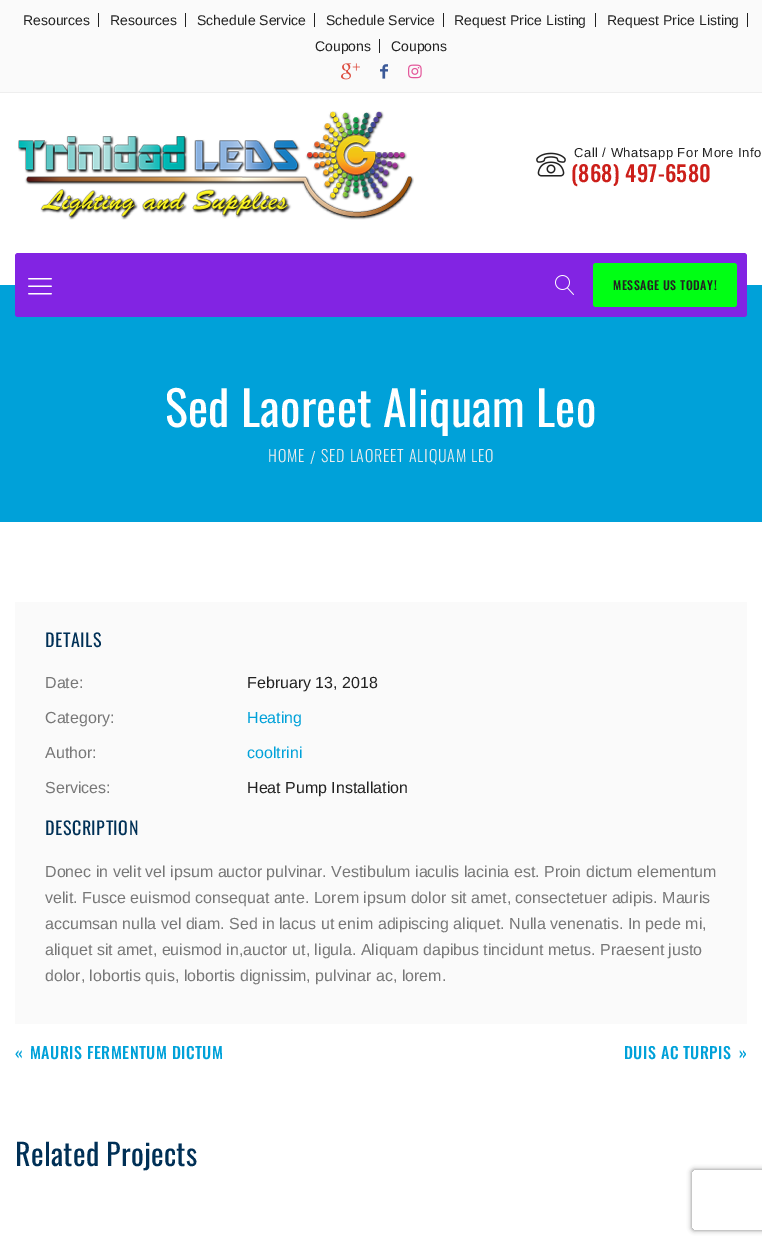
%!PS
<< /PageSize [762 1244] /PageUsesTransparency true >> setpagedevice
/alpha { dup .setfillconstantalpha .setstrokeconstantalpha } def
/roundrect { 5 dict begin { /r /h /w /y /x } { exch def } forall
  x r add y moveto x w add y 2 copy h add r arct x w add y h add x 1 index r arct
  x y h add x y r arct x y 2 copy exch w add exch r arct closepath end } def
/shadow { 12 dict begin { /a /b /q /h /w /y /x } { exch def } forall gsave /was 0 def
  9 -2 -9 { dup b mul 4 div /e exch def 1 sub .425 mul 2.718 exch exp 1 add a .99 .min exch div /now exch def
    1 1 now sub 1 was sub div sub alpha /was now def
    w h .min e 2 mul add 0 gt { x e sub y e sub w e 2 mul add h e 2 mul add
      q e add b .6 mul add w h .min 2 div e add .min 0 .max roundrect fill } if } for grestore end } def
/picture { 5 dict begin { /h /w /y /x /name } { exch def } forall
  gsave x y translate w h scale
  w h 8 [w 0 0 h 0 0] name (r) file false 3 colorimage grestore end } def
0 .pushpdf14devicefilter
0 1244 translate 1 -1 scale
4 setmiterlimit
1 setgray
0 0 762 1244 rectfill
0.98 setgray
0 0 762 92 rectfill
0.933 setgray
0 92 762 1 rectfill
/LiberationSans-Regular [14 0 0 -14 0 0] selectfont
0.133 setgray
23 25 moveto (Resources) show
98 13 1 14 rectfill
110 25 moveto (Resources) show
185 13 1 14 rectfill
197 25 moveto (Schedule Service) show
314 13 1 14 rectfill
326 25 moveto (Schedule Service) show
443 13 1 14 rectfill
454 25 moveto (Request Price Listing) show
595 13 1 14 rectfill
607 25 moveto (Request Price Listing) show
747 13 1 14 rectfill
315 51 moveto (Coupons) show
379 39 1 14 rectfill
391 51 moveto (Coupons) show
(img1.rgb) 341 63 19 17 picture
(img2.rgb) 380 64 8 15 picture
(img3.rgb) 408 64 14 15 picture
(img4.rgb) 18 111 396 109 picture
(img5.rgb) 536 152 30 25 picture
/LiberationSans-Regular [13 0 0 -13 0 0] selectfont
574 157 moveto 0.5 0 (Call / Whatsapp For More Info) ashow
/Oswald-Medium [22 0 0 -22 0 0] selectfont
0.8 0.122 0.102 setrgbcolor
571 182 moveto 0.25 0 (\(868\) 497-6580) ashow
0 0.631 0.851 setrgbcolor
0 285 762 237 rectfill
0.51 0.141 0.89 setrgbcolor
15 253 732 64 3 roundrect fill
(img6.rgb) 28 278 24 17 picture
(img7.rgb) 555 275 19 20 picture
0 1 0.078 setrgbcolor
593 263 144 44 3 roundrect fill
/Oswald-Medium [12 0 0 -12 0 0] selectfont
0.133 setgray
613 290 moveto 0.5 0 (MESSAGE US TODAY!) ashow
/Oswald-Regular [48 0 0 -48 0 0] selectfont
1 setgray
165 427 moveto 0.2 0 (Sed Laoreet Aliquam Leo) ashow
/Oswald-Light [16 0 0 -16 0 0] selectfont
0.933 setgray
268 462 moveto 0.8 0 (HOME) ashow
310 464 moveto 0.8 0 (/) ashow
321 462 moveto 0.8 0 (SED LAOREET ALIQUAM LEO) ashow
0.98 setgray
15 602 732 422 rectfill
/Oswald-Regular [18 0 0 -18 0 0] selectfont
0 0.188 0.337 setrgbcolor
45 647 moveto 0.5 0 (DETAILS) ashow
/LiberationSans-Regular [16 0 0 -16 0 0] selectfont
0.467 setgray
45 688 moveto (Date:) show
0.133 setgray
247 688 moveto (February 13, 2018) show
0.467 setgray
45 723 moveto (Category:) show
0 0.631 0.851 setrgbcolor
247 723 moveto (Heating) show
0.467 setgray
45 758 moveto (Author:) show
0 0.631 0.851 setrgbcolor
247 758 moveto (cooltrini) show
0.467 setgray
45 793 moveto (Services:) show
0.133 setgray
247 793 moveto (Heat Pump Installation) show
/Oswald-Regular [18 0 0 -18 0 0] selectfont
0 0.188 0.337 setrgbcolor
45 835 moveto 0.5 0 (DESCRIPTION) ashow
/LiberationSans-Regular [16 0 0 -16 0 0] selectfont
0.467 setgray
45 877 moveto (Donec in velit vel ipsum auctor pulvinar. Vestibulum iaculis lacinia est. Proin dictum elementum) show
45 903 moveto (velit. Fusce euismod consequat ante. Lorem ipsum dolor sit amet, consectetuer adipis. Mauris) show
45 929 moveto (accumsan nulla vel diam. Sed in lacus ut enim adipiscing aliquet. Nulla venenatis. In pede mi,) show
45 955 moveto (aliquet sit amet, euismod in,auctor ut, ligula. Aliquam dapibus tincidunt metus. Praesent justo) show
45 981 moveto (dolor, lobortis quis, lobortis dignissim, pulvinar ac, lorem.) show
/Oswald-Medium [16 0 0 -16 0 0] selectfont
0 0.631 0.851 setrgbcolor
15 1059 moveto 0.5 0 («) ashow
30 1059 moveto 0.5 0 (MAURIS FERMENTUM DICTUM) ashow
624 1059 moveto 0.5 0 (DUIS AC TURPIS) ashow
739 1059 moveto 0.5 0 (») ashow
/Oswald-Regular [30 0 0 -30 0 0] selectfont
0 0.188 0.337 setrgbcolor
15 1166 moveto 0.25 0 (Related Projects) ashow
gsave
newpath 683 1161 moveto 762 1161 lineto 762 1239 lineto 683 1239 lineto closepath 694 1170 moveto 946 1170 lineto 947 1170 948 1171 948 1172 curveto 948 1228 lineto 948 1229 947 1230 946 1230 curveto 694 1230 lineto 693 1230 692 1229 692 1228 curveto 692 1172 lineto 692 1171 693 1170 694 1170 curveto closepath eoclip newpath
0.502 setgray
692 1170 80 60 2 2.5 1 shadow
grestore
.poppdf14devicefilter showpage
